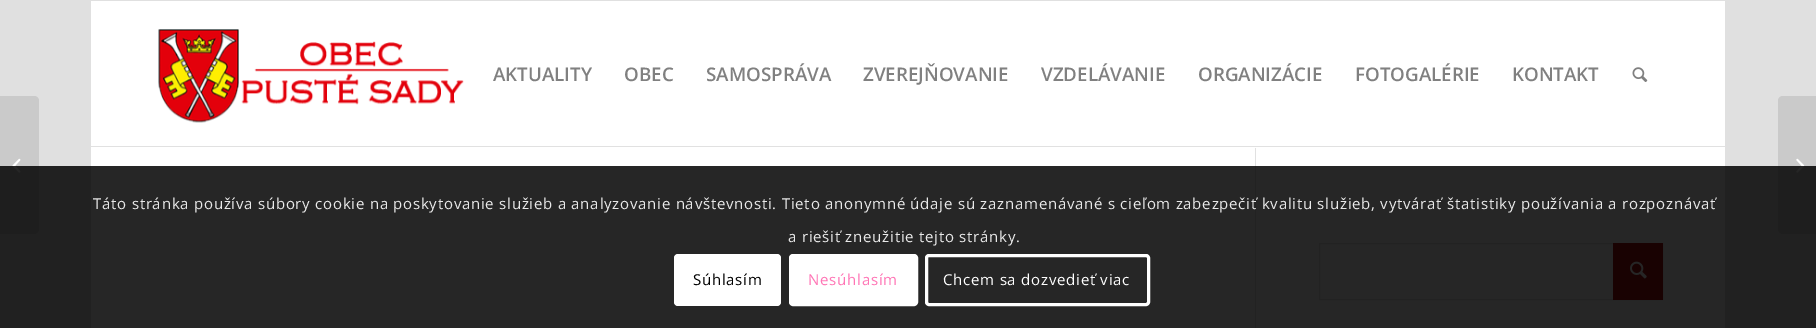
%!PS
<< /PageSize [1816 328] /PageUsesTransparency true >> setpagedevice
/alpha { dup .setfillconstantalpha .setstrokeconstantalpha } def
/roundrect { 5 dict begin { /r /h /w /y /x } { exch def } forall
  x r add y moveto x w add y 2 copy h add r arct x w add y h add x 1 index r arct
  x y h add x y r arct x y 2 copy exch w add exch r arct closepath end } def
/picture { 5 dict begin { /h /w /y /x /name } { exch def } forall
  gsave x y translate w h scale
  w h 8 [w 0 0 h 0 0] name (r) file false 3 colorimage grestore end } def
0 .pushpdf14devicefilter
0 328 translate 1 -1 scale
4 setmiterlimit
0.878 setgray
0 0 1816 328 rectfill
1 setgray
91 1 1634 327 rectfill
0.882 setgray
1255 146 1 182 rectfill
0.996 setgray
1255 146 1 2 rectfill
0.988 setgray
1320 244 293 55 rectfill
0.882 setgray
1319.5 243.5 343 56 rectstroke
0.659 0.063 0.063 setrgbcolor
1613 243 50 57 rectfill
(img1.rgb) 1630 261 17 18 picture
0.882 setgray
91 146 1634 1 rectfill
(img2.rgb) 158 29 306 94 picture
/OpenSans-SemiBold [18.75 0 0 -18.75 0 0] selectfont
0.502 setgray
493 81 moveto (AKTUALITY) show
624 81 moveto (OBEC) show
706 81 moveto (SAMOSPRÁVA) show
863 81 moveto (ZVEREJŇOVANIE) show
1041 81 moveto (VZDELÁVANIE) show
1198 81 moveto (ORGANIZÁCIE) show
1355 81 moveto (FOTOGALÉRIE) show
1512 81 moveto (KONTAKT) show
(img3.rgb) 1632 67 16 15 picture
0.792 setgray
newpath 0 96 moveto 34 96 lineto 37 96 39 98 39 101 curveto 39 229 lineto 39 232 37 234 34 234 curveto 0 234 lineto closepath fill
(img4.rgb) 12 158 9 15 picture
newpath 1783 96 moveto 1816 96 lineto 1816 234 lineto 1783 234 lineto 1780 234 1778 232 1778 229 curveto 1778 101 lineto 1778 98 1780 96 1783 96 curveto closepath fill
(img5.rgb) 1796 158 9 15 picture
0.85 alpha
0 setgray
0 166 1816 162 rectfill
/OpenSans-Regular [15 0 0 -15 0 0] selectfont
1 alpha
0.914 setgray
93 209 moveto 0.75 0 (Táto stránka používa súbory cookie na poskytovanie služieb a analyzovanie návštevnosti. Tieto anonymné údaje sú zaznamenávané s cieľom zabezpečiť kvalitu služieb, vytvárať štatistiky používania a rozpoznávať) ashow
788 242 moveto 0.75 0 (a riešiť zneužitie tejto stránky.) ashow
1 setgray
674 254 107 52 4 roundrect fill
0 setgray
693 285 moveto 0.75 0 (Súhlasím) ashow
1 setgray
790.5 255.5 126 49 2.5 roundrect gsave fill grestore
3 setlinewidth
stroke
1 0.459 0.71 setrgbcolor
808 285 moveto 0.75 0 (Nesúhlasím) ashow
1 setgray
926.5 255.5 222 49 2.5 roundrect stroke
943 285 moveto 0.75 0 (Chcem sa dozvedieť viac) ashow
.poppdf14devicefilter showpage
